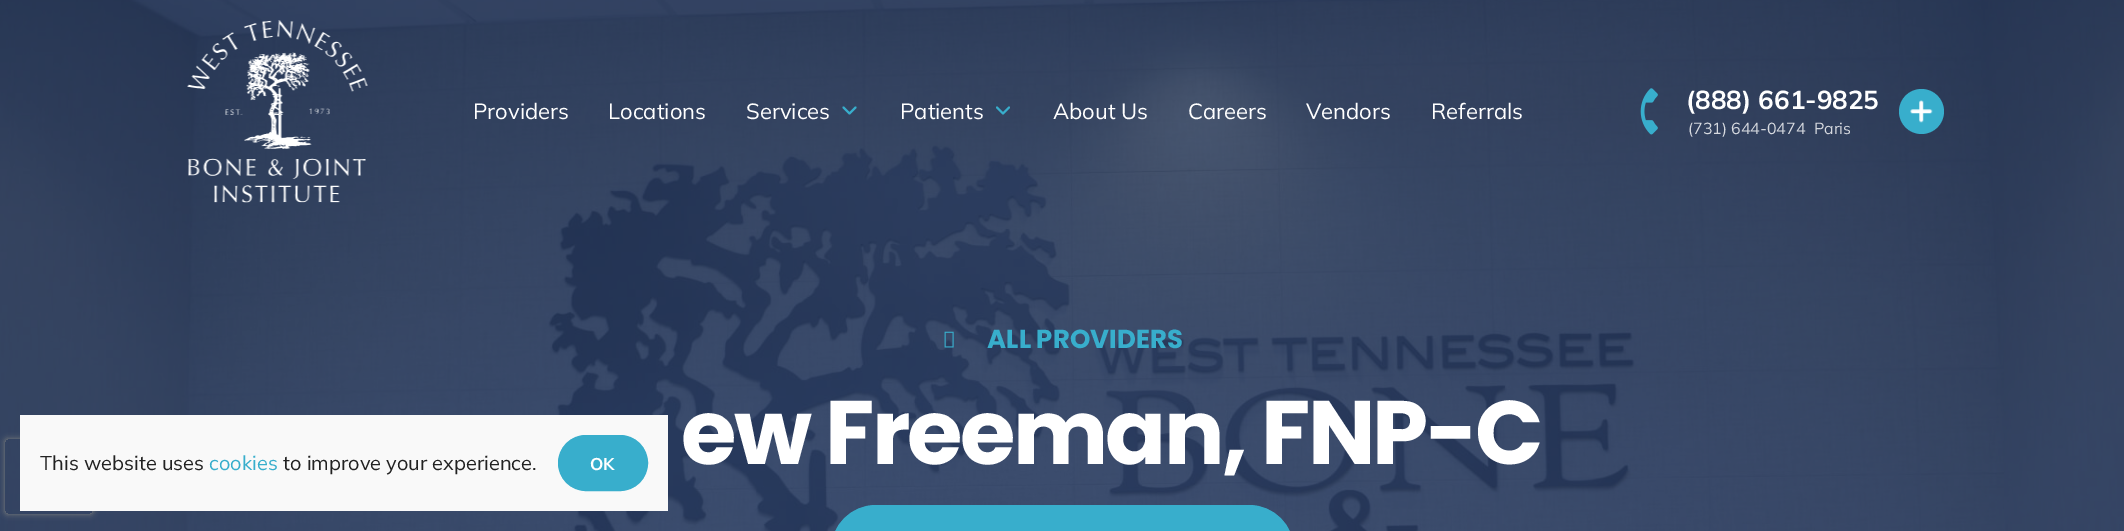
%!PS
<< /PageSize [2124 531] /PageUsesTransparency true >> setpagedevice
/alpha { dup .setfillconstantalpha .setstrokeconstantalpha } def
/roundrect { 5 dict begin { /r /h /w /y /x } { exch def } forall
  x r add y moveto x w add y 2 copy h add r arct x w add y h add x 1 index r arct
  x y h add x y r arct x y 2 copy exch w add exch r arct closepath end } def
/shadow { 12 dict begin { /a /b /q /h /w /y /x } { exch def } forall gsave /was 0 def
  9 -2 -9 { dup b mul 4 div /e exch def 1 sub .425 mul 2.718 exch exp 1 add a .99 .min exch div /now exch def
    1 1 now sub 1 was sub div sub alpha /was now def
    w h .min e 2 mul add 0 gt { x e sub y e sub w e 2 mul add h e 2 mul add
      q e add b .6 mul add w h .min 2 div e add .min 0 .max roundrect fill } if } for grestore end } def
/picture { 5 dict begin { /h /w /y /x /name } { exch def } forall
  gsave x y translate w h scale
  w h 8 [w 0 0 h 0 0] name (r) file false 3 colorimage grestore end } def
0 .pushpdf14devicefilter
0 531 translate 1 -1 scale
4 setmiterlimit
0.122 0.208 0.369 setrgbcolor
0 0 2124 531 rectfill
(img4.rgb) 0 0 2124 531 picture
(img1.rgb) 187 20 181 183 picture
/Mulish-Regular [22 0 0 -22 0 0] selectfont
1 setgray
473 119 moveto (Providers) show
608 119 moveto (Locations) show
746 119 moveto (Services) show
0.22 0.682 0.8 setrgbcolor
2 setlinewidth
1 setlinecap
1 setlinejoin
newpath 843.5 107.5 moveto 849.5 113.5 lineto 855.5 107.5 lineto stroke
1 setgray
900 119 moveto (Patients) show
0.22 0.682 0.8 setrgbcolor
newpath 997 107.5 moveto 1003 113.5 lineto 1009 107.5 lineto stroke
1 setgray
1053 119 moveto (About Us) show
1188 119 moveto (Careers) show
1306 119 moveto (Vendors) show
1431 119 moveto (Referrals) show
(img2.rgb) 1640 88 18 47 picture
/Mulish-Bold [26 0 0 -26 0 0] selectfont
1686 109 moveto (\(888\) 661-9825) show
/Mulish-Regular [16 0 0 -16 0 0] selectfont
0.839 0.851 0.875 setrgbcolor
1688 134 moveto (\(731\) 644-0474  Paris) show
0.22 0.682 0.8 setrgbcolor
newpath 1921.5 111.5 22.5 0 360 arc closepath fill
(img3.rgb) 1910 100 23 23 picture
gsave
newpath 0 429 moveto 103 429 lineto 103 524 lineto 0 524 lineto closepath 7.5 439 moveto 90.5 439 lineto 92 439 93 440 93 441.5 curveto 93 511.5 lineto 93 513 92 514 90.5 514 curveto 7.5 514 lineto 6 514 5 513 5 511.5 curveto 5 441.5 lineto 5 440 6 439 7.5 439 curveto closepath eoclip newpath
0.502 setgray
5 439 88 75 2.5 3 1 shadow
grestore
(img5.rgb) 944 331 10 17 picture
/Poppins-Bold [26 0 0 -26 0 0] selectfont
987 348 moveto (ALL PROVIDERS) show
/Poppins-Bold [90 0 0 -90 0 0] selectfont
1 setgray
681 464 moveto -2.75 0 (ew Freeman, FNP-C) ashow
0.22 0.682 0.8 setrgbcolor
831.5 505.5 462 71 44.5 roundrect gsave fill grestore
1 setlinewidth
0 setlinecap
0 setlinejoin
stroke
0.976 setgray
20 415 648 96 rectfill
/Mulish-Regular [20 0 0 -20 0 0] selectfont
0.133 setgray
40 470 moveto (This website uses) show
0.22 0.682 0.8 setrgbcolor
209 470 moveto (cookies) show
0.133 setgray
283 470 moveto (to improve your experience.) show
0.22 0.682 0.8 setrgbcolor
558.5 435.5 89 55 27.5 roundrect gsave fill grestore
stroke
/Mulish-Bold [17 0 0 -17 0 0] selectfont
1 setgray
590 470 moveto (OK) show
.poppdf14devicefilter showpage
